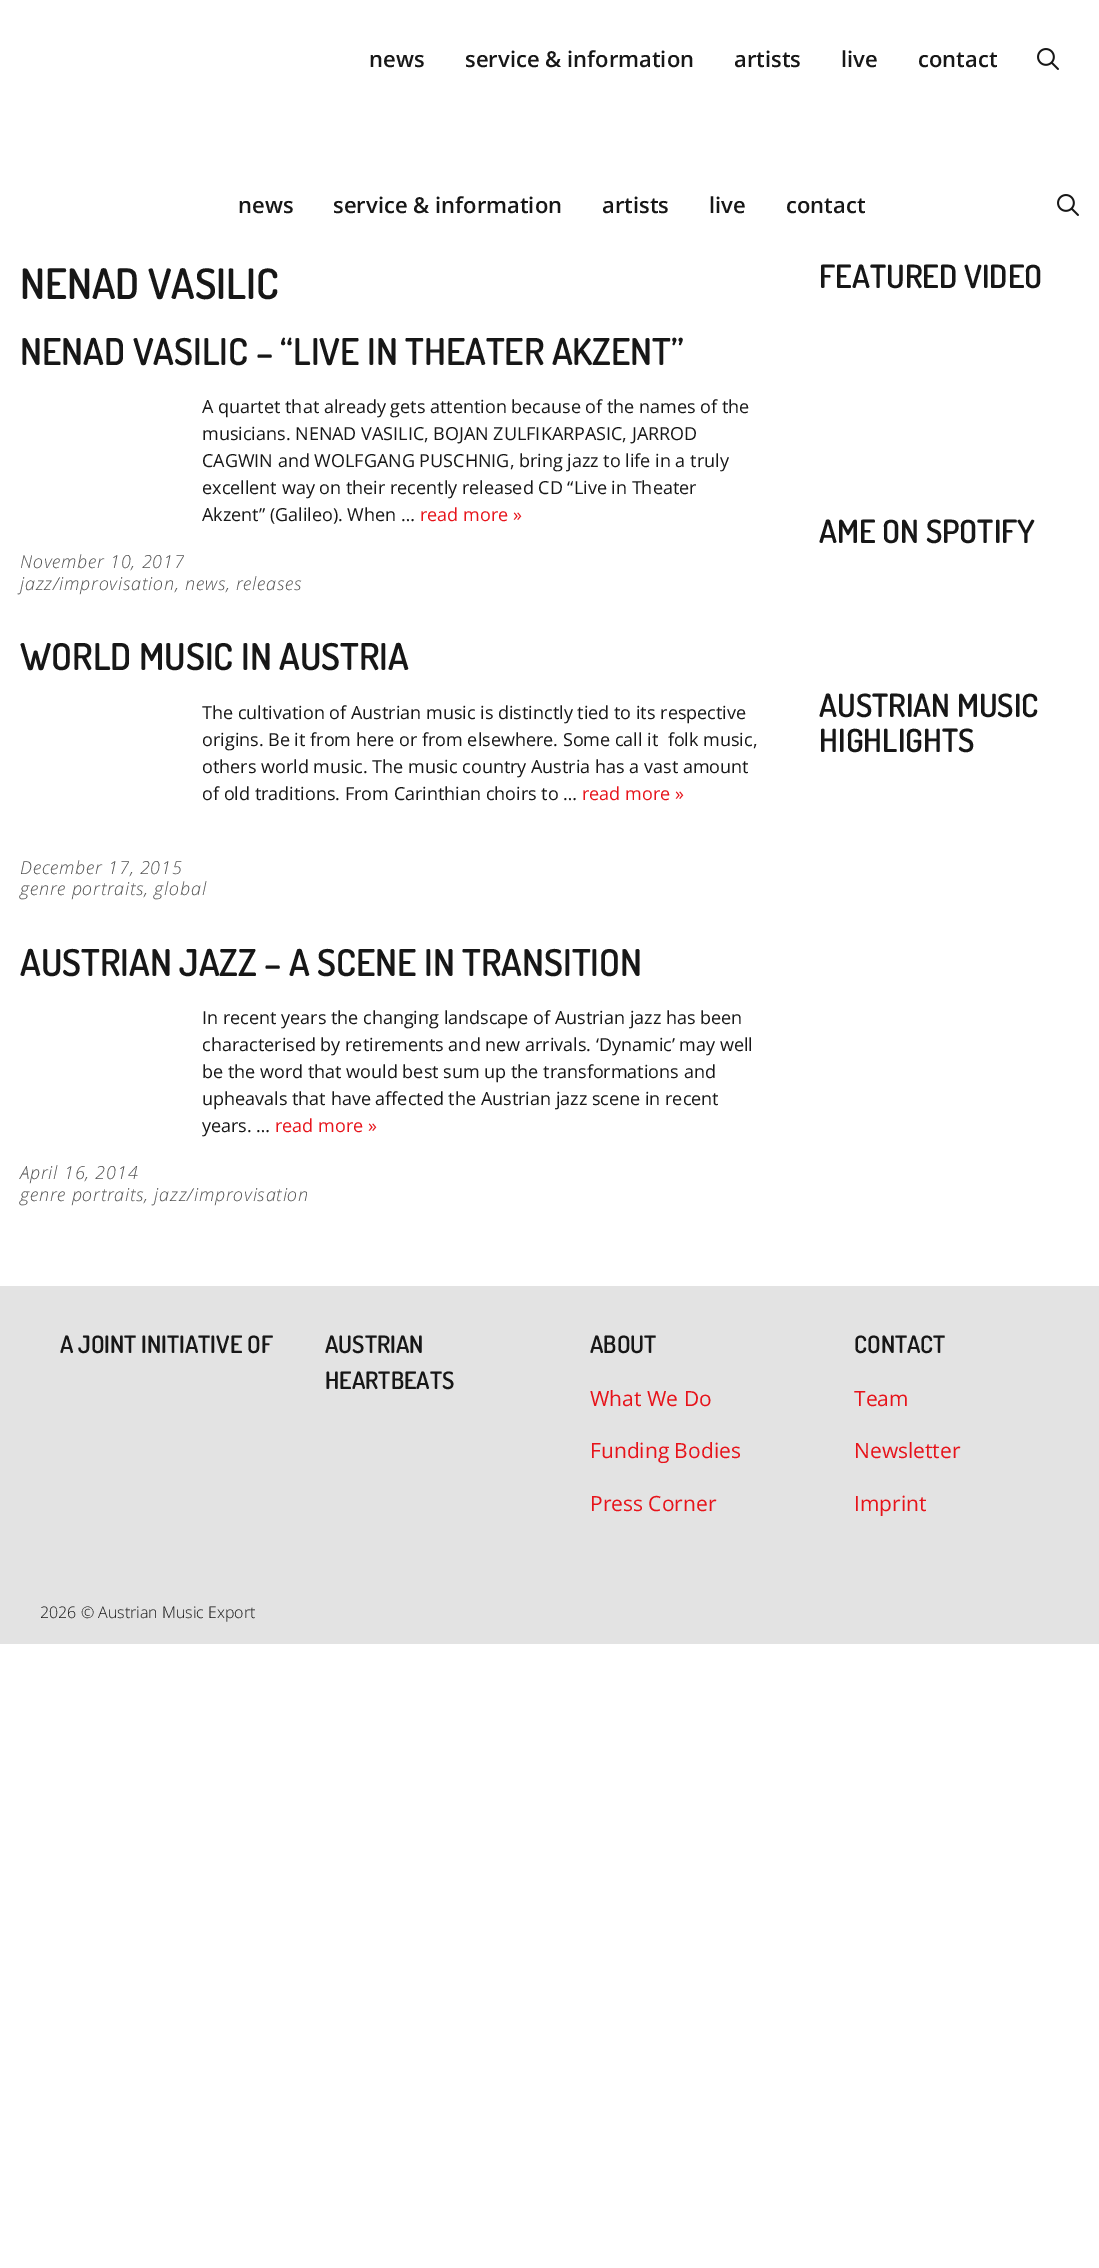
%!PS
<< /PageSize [1099 2268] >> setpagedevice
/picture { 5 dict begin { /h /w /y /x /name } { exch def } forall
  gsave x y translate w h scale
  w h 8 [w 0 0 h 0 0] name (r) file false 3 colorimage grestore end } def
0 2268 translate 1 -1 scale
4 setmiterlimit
1 setgray
0 0 1099 2268 rectfill
/OpenSans-SemiBold [22 0 0 -22 0 0] selectfont
0.09 setgray
369 67 moveto (news) show
465 67 moveto (service & information) show
734 67 moveto (artists) show
841 67 moveto (live) show
918 67 moveto (contact) show
(img1.rgb) 1037 48 22 22 picture
238 213 moveto (news) show
333 213 moveto (service & information) show
602 213 moveto (artists) show
709 213 moveto (live) show
786 213 moveto (contact) show
(img1.rgb) 1057 194 22 22 picture
/Dosis-SemiBold [42 0 0 -42 0 0] selectfont
20 299 moveto (NENAD VASILIC) show
/Dosis-SemiBold [37 0 0 -37 0 0] selectfont
20 365 moveto (NENAD VASILIC – “LIVE IN THEATER AKZENT”) show
/OpenSans-Regular [18 0 0 -18 0 0] selectfont
202 413 moveto (A quartet that already gets attention because of the names of the) show
202 440 moveto (musicians. NENAD VASILIC, BOJAN ZULFIKARPASIC, JARROD) show
202 467 moveto (CAGWIN and WOLFGANG PUSCHNIG, bring jazz to life in a truly) show
202 494 moveto (excellent way on their recently released CD “Live in Theater) show
202 521 moveto (Akzent” \(Galileo\). When …) show
0.906 0.075 0.102 setrgbcolor
420 521 moveto (read more ») show
/OpenSans-LightItalic [18 0 0 -18 0 0] selectfont
0.322 setgray
20 568 moveto 0.8 0 (November 10, 2017) ashow
20 590 moveto 0.8 0 (jazz/improvisation, news, releases) ashow
/Dosis-SemiBold [37 0 0 -37 0 0] selectfont
0.09 setgray
20 670 moveto (WORLD MUSIC IN AUSTRIA) show
/OpenSans-Regular [18 0 0 -18 0 0] selectfont
202 719 moveto (The cultivation of Austrian music is distinctly tied to its respective) show
202 746 moveto (origins. Be it from here or from elsewhere. Some call it  folk music,) show
202 773 moveto (others world music. The music country Austria has a vast amount) show
202 800 moveto (of old traditions. From Carinthian choirs to …) show
0.906 0.075 0.102 setrgbcolor
582 800 moveto (read more ») show
/OpenSans-LightItalic [18 0 0 -18 0 0] selectfont
0.322 setgray
20 874 moveto 0.8 0 (December 17, 2015) ashow
20 895 moveto 0.8 0 (genre portraits, global) ashow
/Dosis-SemiBold [37 0 0 -37 0 0] selectfont
0.09 setgray
20 976 moveto (AUSTRIAN JAZZ – A SCENE IN TRANSITION) show
/OpenSans-Regular [18 0 0 -18 0 0] selectfont
202 1024 moveto (In recent years the changing landscape of Austrian jazz has been) show
202 1051 moveto (characterised by retirements and new arrivals. ‘Dynamic’ may well) show
202 1078 moveto (be the word that would best sum up the transformations and) show
202 1105 moveto (upheavals that have affected the Austrian jazz scene in recent) show
202 1132 moveto (years. …) show
0.906 0.075 0.102 setrgbcolor
275 1132 moveto (read more ») show
/OpenSans-LightItalic [18 0 0 -18 0 0] selectfont
0.322 setgray
20 1179 moveto 0.8 0 (April 16, 2014) ashow
20 1201 moveto 0.8 0 (genre portraits, jazz/improvisation) ashow
/Dosis-SemiBold [32 0 0 -32 0 0] selectfont
0.09 setgray
819 288 moveto (FEATURED VIDEO) show
819 543 moveto (AME ON SPOTIFY) show
819 717 moveto (AUSTRIAN MUSIC) show
819 752 moveto (HIGHLIGHTS) show
0.89 setgray
0 1286 1099 358 rectfill
/Dosis-SemiBold [24 0 0 -24 0 0] selectfont
0.09 setgray
60 1353 moveto (A JOINT INITIATIVE OF) show
325 1353 moveto (AUSTRIAN) show
325 1389 moveto (HEARTBEATS) show
590 1353 moveto (ABOUT) show
/OpenSans-Regular [21 0 0 -21 0 0] selectfont
0.906 0.075 0.102 setrgbcolor
590 1406 moveto (What We Do) show
590 1458 moveto (Funding Bodies) show
590 1511 moveto (Press Corner) show
/Dosis-SemiBold [24 0 0 -24 0 0] selectfont
0.09 setgray
854 1353 moveto (CONTACT) show
/OpenSans-Regular [21 0 0 -21 0 0] selectfont
0.906 0.075 0.102 setrgbcolor
854 1406 moveto (Team) show
854 1458 moveto (Newsletter) show
854 1511 moveto (Imprint) show
/OpenSans-Light [16 0 0 -16 0 0] selectfont
0.09 setgray
40 1618 moveto (2026 © Austrian Music Export) show
showpage
